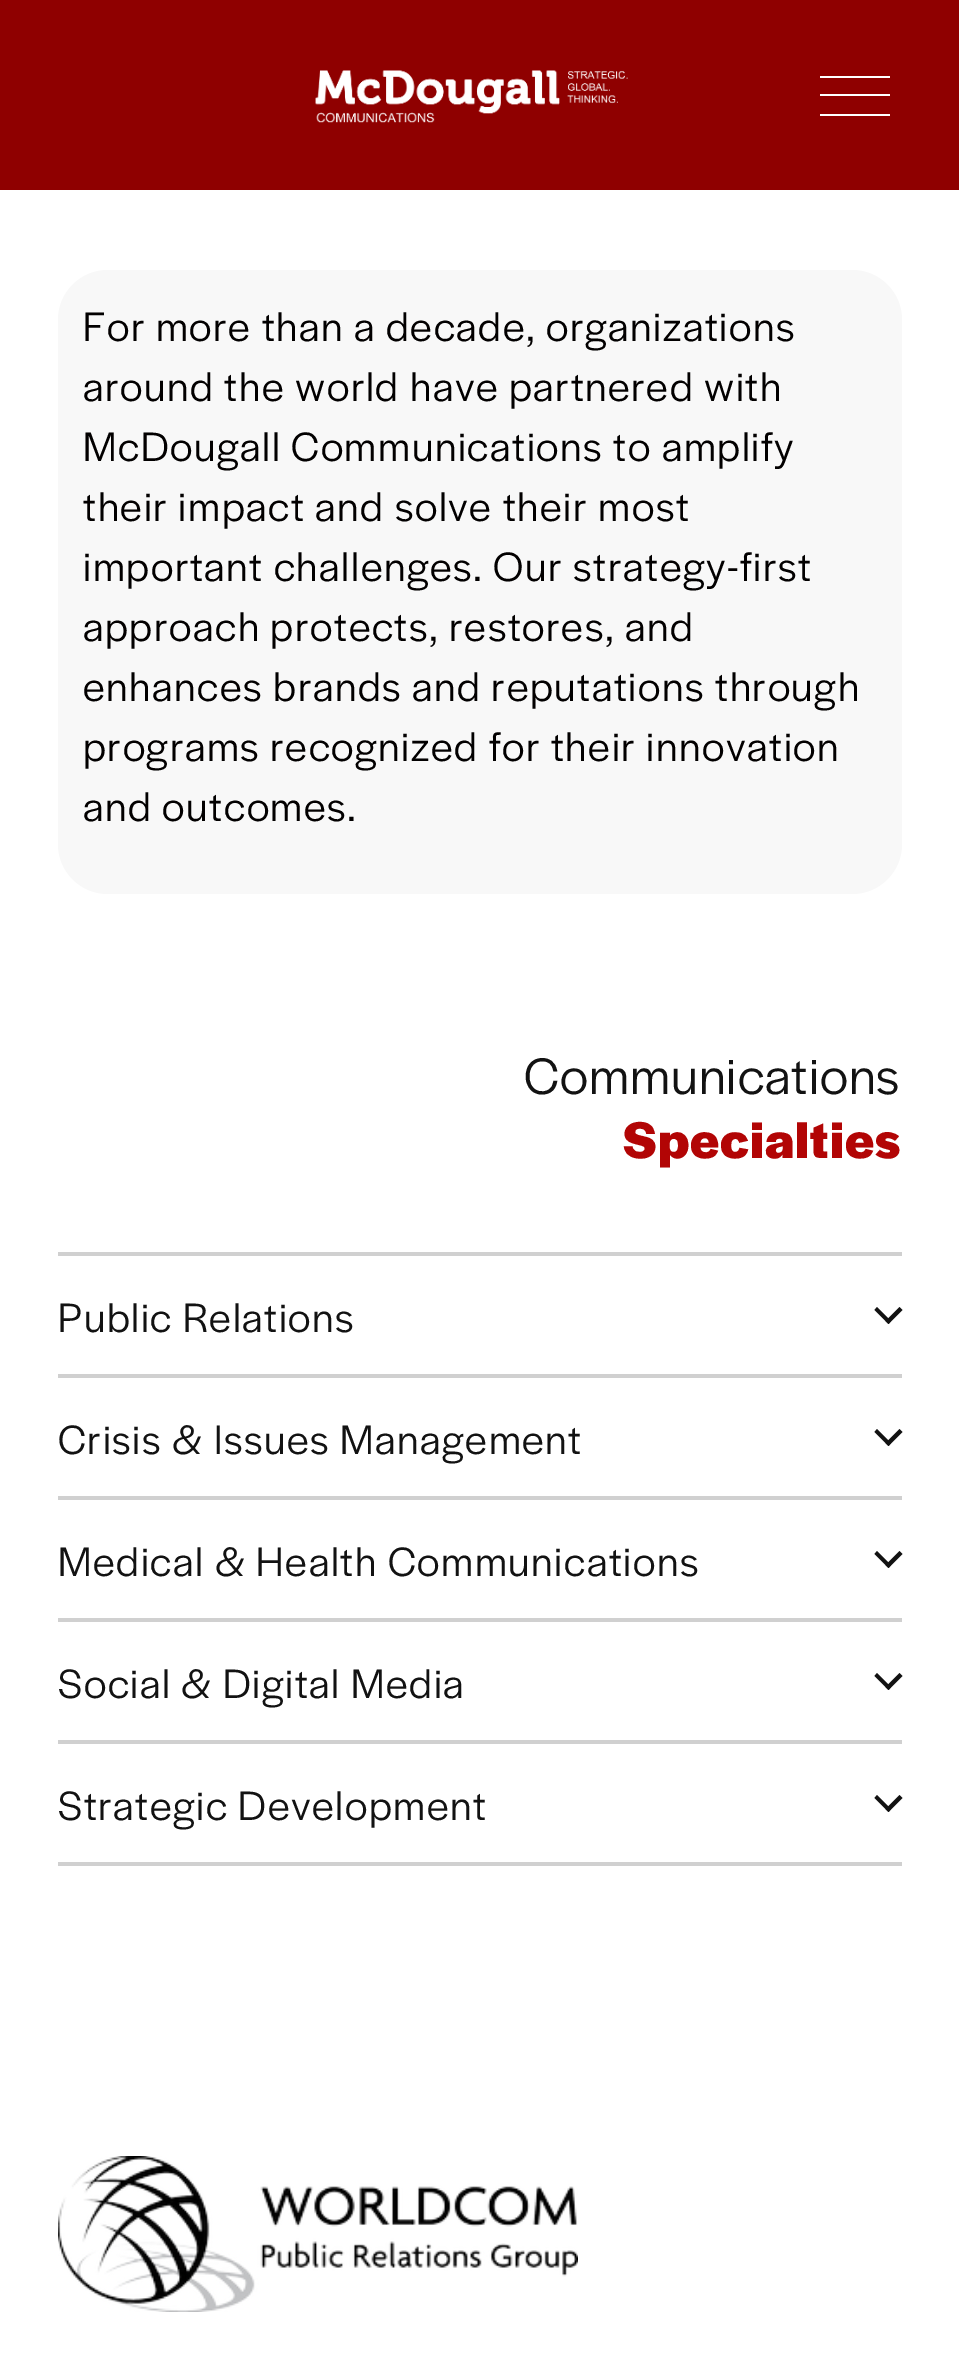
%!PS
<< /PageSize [959 2364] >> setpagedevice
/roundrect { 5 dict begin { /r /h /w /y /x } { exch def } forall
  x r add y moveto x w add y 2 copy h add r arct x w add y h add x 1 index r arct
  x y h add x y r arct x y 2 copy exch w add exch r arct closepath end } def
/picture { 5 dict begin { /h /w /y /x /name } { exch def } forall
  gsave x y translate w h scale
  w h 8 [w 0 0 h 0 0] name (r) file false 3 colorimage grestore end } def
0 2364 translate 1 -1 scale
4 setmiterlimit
1 setgray
0 0 959 2364 rectfill
0.561 0 0 setrgbcolor
0 0 959 190 rectfill
(img1.rgb) 315 70 313 53 picture
1 setgray
820 76 70 2 rectfill
820 94 70 2 rectfill
820 114 70 2 rectfill
0.973 setgray
58 270 844 624 50 roundrect fill
/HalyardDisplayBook-Regular [42.75 0 0 -42.75 0 0] selectfont
0.008 0 0 setrgbcolor
83 341 moveto 1.6 0 (For more than a decade, organizations) ashow
83 401 moveto 1.6 0 (around the world have partnered with) ashow
83 461 moveto 1.6 0 (McDougall Communications to amplify) ashow
83 521 moveto 1.6 0 (their impact and solve their most) ashow
83 581 moveto 1.6 0 (important challenges. Our strategy-first) ashow
83 641 moveto 1.6 0 (approach protects, restores, and) ashow
83 701 moveto 1.6 0 (enhances brands and reputations through) ashow
83 761 moveto 1.6 0 (programs recognized for their innovation) ashow
83 821 moveto 1.6 0 (and outcomes.) ashow
/HalyardDisplayBook-Regular [53.5 0 0 -53.5 0 0] selectfont
0.071 setgray
524 1094 moveto 1 0 (Communications) ashow
/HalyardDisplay-Bold [53.5 0 0 -53.5 0 0] selectfont
0.698 0.02 0.02 setrgbcolor
623 1158 moveto 1 0 (Specialties) ashow
0.816 setgray
58 1252 844 4 rectfill
/HalyardDisplayBook-Regular [42.75 0 0 -42.75 0 0] selectfont
0.071 setgray
58 1332 moveto 1.6 0 (Public Relations) ashow
newpath 899.5 1307 moveto 902.5 1310 lineto 888.5 1324 lineto 885.5 1321 lineto closepath fill
newpath 877 1307 moveto 891 1321 lineto 888.5 1324 lineto 874.5 1310 lineto closepath fill
0.816 setgray
58 1374 844 4 rectfill
0.071 setgray
58 1454 moveto 1.6 0 (Crisis & Issues Management) ashow
newpath 899.5 1429 moveto 902.5 1432 lineto 888.5 1446 lineto 885.5 1443 lineto closepath fill
newpath 877 1429 moveto 891 1443 lineto 888.5 1446 lineto 874.5 1432 lineto closepath fill
0.816 setgray
58 1496 844 4 rectfill
0.071 setgray
58 1576 moveto 1.6 0 (Medical & Health Communications) ashow
newpath 899.5 1551 moveto 902.5 1554 lineto 888.5 1568 lineto 885.5 1565 lineto closepath fill
newpath 877 1551 moveto 891 1565 lineto 888.5 1568 lineto 874.5 1554 lineto closepath fill
0.816 setgray
58 1618 844 4 rectfill
0.071 setgray
58 1698 moveto 1.6 0 (Social & Digital Media) ashow
newpath 899.5 1673 moveto 902.5 1676 lineto 888.5 1690 lineto 885.5 1687 lineto closepath fill
newpath 877 1673 moveto 891 1687 lineto 888.5 1690 lineto 874.5 1676 lineto closepath fill
0.816 setgray
58 1740 844 4 rectfill
0.071 setgray
58 1820 moveto 1.6 0 (Strategic Development) ashow
newpath 899.5 1795 moveto 902.5 1798 lineto 888.5 1812 lineto 885.5 1809 lineto closepath fill
newpath 877 1795 moveto 891 1809 lineto 888.5 1812 lineto 874.5 1798 lineto closepath fill
0.816 setgray
58 1862 844 4 rectfill
(img2.rgb) 58 2156 520 156 picture
showpage
